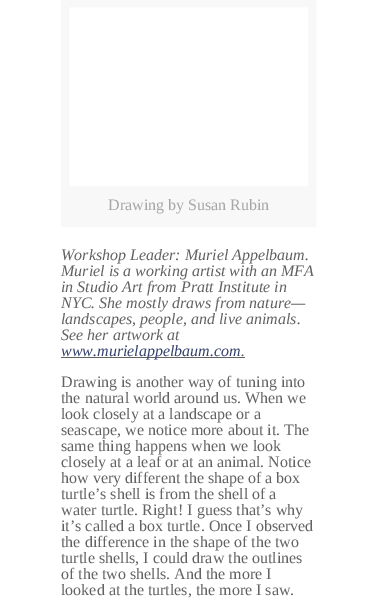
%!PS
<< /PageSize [377 599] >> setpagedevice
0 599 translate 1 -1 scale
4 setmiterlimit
1 setgray
0 0 377 599 rectfill
0.973 setgray
8 setlinewidth
65 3 247 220 rectstroke
69 186 239 33 rectfill
/LiberationSerif-Regular [16 0 0 -16 0 0] selectfont
0.651 setgray
108 210 moveto (Drawing by Susan Rubin) show
/LiberationSerif-Italic [16 0 0 -16 0 0] selectfont
0.384 setgray
61 260 moveto (Workshop Leader: Muriel Appelbaum.) show
61 276 moveto (Muriel is a working artist with an MFA) show
61 292 moveto (in Studio Art from Pratt Institute in) show
61 308 moveto (NYC. She mostly draws from nature—) show
61 324 moveto (landscapes, people, and live animals.) show
61 340 moveto (See her artwork at) show
61 357 184 1 rectfill
0.204 0.259 0.424 setrgbcolor
61 356 moveto (www.murielappelbaum.com) show
0.384 setgray
241 356 moveto (.) show
/LiberationSerif-Regular [16 0 0 -16 0 0] selectfont
61 387 moveto (Drawing is another way of tuning into) show
61 403 moveto (the natural world around us. When we) show
61 419 moveto (look closely at a landscape or a) show
61 435 moveto (seascape, we notice more about it. The) show
61 451 moveto (same thing happens when we look) show
61 467 moveto (closely at a leaf or at an animal. Notice) show
61 483 moveto (how very different the shape of a box) show
61 499 moveto (turtle’s shell is from the shell of a) show
61 515 moveto (water turtle. Right! I guess that’s why) show
61 531 moveto (it’s called a box turtle. Once I observed) show
61 547 moveto (the difference in the shape of the two) show
61 563 moveto (turtle shells, I could draw the outlines) show
61 579 moveto (of the two shells. And the more I) show
61 595 moveto (looked at the turtles, the more I saw.) show
showpage
